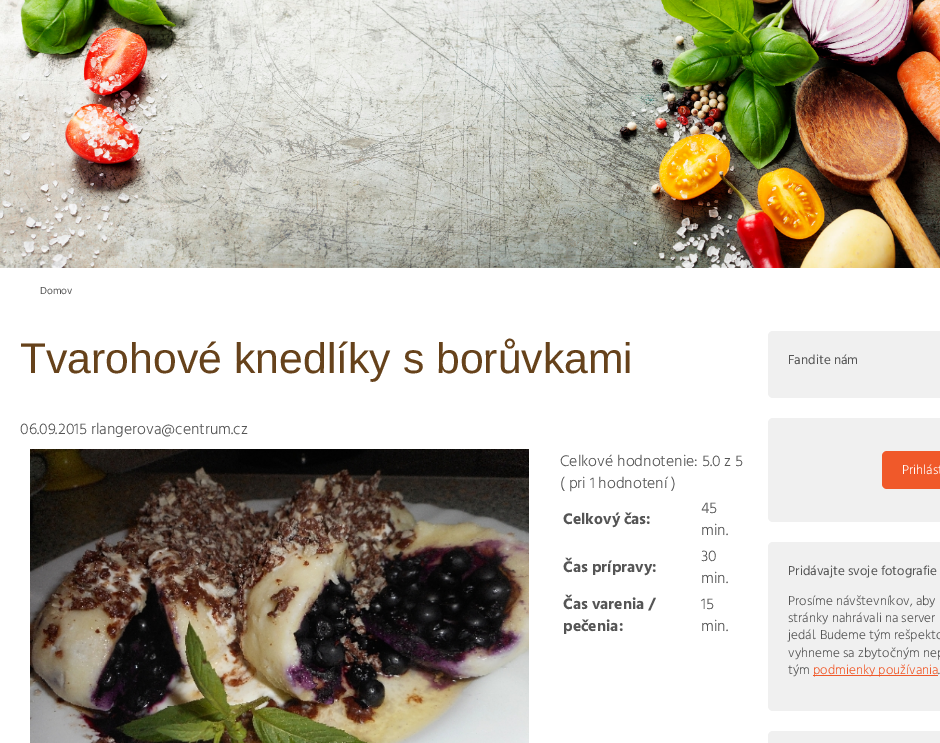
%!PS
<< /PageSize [940 743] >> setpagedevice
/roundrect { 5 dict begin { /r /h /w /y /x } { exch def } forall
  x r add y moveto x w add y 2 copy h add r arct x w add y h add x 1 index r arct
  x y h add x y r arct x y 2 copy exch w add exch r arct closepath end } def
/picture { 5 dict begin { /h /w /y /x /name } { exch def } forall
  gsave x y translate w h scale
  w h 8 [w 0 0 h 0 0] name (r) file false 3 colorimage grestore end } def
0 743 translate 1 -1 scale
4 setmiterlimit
1 setgray
0 0 940 743 rectfill
(img1.rgb) 0 0 940 268 picture
/HindVadodara-Regular [10.5 0 0 -10.5 0 0] selectfont
0.333 setgray
40 294 moveto (Domov) show
/LiberationSans-Regular [42.75 0 0 -42.75 0 0] selectfont
0.4 0.259 0.106 setrgbcolor
20 373 moveto (Tvarohové knedlíky s borůvkami) show
/HindVadodara-Light [15.8 0 0 -15.8 0 0] selectfont
0.333 setgray
20 434 moveto (06.09.2015 rlangerova@centrum.cz) show
(img2.rgb) 30 449 499 294 picture
560 466 moveto (Celkové hodnotenie: 5.0 z 5) show
560 488 moveto (\( pri 1 hodnotení \)) show
/HindVadodara-Bold [15.8 0 0 -15.8 0 0] selectfont
563 524 moveto (Celkový čas:) show
/HindVadodara-Light [15.8 0 0 -15.8 0 0] selectfont
701 513 moveto (45) show
701 535 moveto (min.) show
/HindVadodara-Bold [15.8 0 0 -15.8 0 0] selectfont
563 572 moveto (Čas prípravy:) show
/HindVadodara-Light [15.8 0 0 -15.8 0 0] selectfont
701 561 moveto (30) show
701 583 moveto (min.) show
/HindVadodara-Bold [15.8 0 0 -15.8 0 0] selectfont
563 609 moveto (Čas varenia /) show
563 631 moveto (pečenia:) show
/HindVadodara-Light [15.8 0 0 -15.8 0 0] selectfont
701 609 moveto (15) show
701 631 moveto (min.) show
0.941 setgray
768 331 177 67 5 roundrect fill
/HindVadodara-Regular [13.25 0 0 -13.25 0 0] selectfont
0.333 setgray
788 364 moveto (Fandite nám) show
0.941 setgray
768 418 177 104 5 roundrect fill
0.941 0.349 0.165 setrgbcolor
882 451 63 38 5 roundrect fill
/HindVadodara-Light [13.25 0 0 -13.25 0 0] selectfont
1 setgray
902 474 moveto (Prihlást) show
0.941 setgray
768 542 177 169 5 roundrect fill
/HindVadodara-Regular [13.25 0 0 -13.25 0 0] selectfont
0.333 setgray
788 575 moveto (Pridávajte svoje fotografie) show
/HindVadodara-Light [13.25 0 0 -13.25 0 0] selectfont
788 605 moveto (Prosíme návštevníkov, aby) show
788 622 moveto (stránky nahrávali na server) show
788 639 moveto (jedál. Budeme tým rešpekto) show
788 657 moveto (vyhneme sa zbytočným nep) show
788 674 moveto (tým) show
0.941 0.349 0.165 setrgbcolor
813 675 125 1 rectfill
813 674 moveto (podmienky používania) show
0.333 setgray
938 674 moveto (.) show
0.941 setgray
768 731 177 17 5 roundrect fill
showpage
